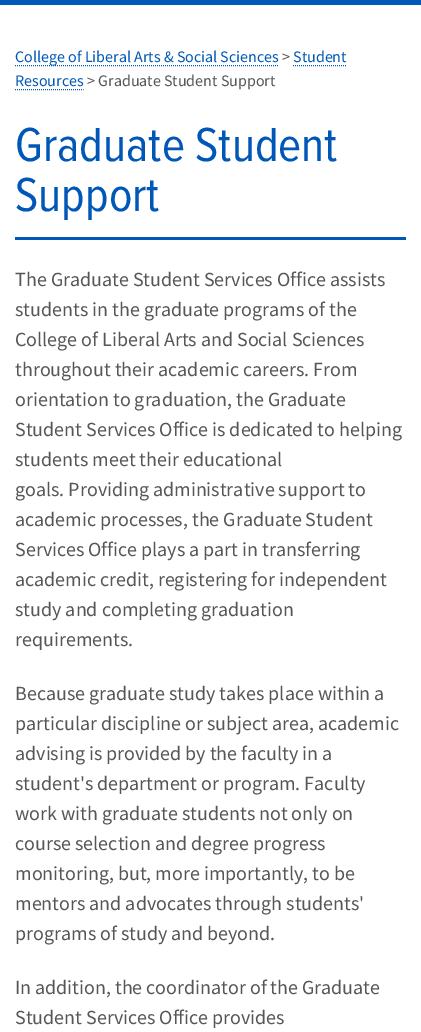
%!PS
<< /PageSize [421 1032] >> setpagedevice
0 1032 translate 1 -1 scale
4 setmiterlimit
1 setgray
0 0 421 1032 rectfill
0 0.341 0.718 setrgbcolor
0 0 421 5 rectfill
[1 1] 0 setdash
newpath 15 65.5 moveto 279 65.5 lineto stroke
/SourceSansPro-Regular [16 0 0 -16 0 0] selectfont
15 62 moveto (College of Liberal Arts & Social Sciences) show
0.337 setgray
282 62 moveto (>) show
0 0.341 0.718 setrgbcolor
293 62 moveto (Student) show
newpath 293 65.5 moveto 347 65.5 lineto stroke
15 86 moveto (Resources) show
newpath 15 89.5 moveto 83.5 89.5 lineto stroke
0.337 setgray
87 86 moveto (> Graduate Student Support) show
0 0.341 0.718 setrgbcolor
15 237 391 3 rectfill
/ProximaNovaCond-Regular [49.5 0 0 -49.5 0 0] selectfont
15 161 moveto (Graduate Student) show
15 211 moveto (Support) show
/SourceSansPro-Regular [20 0 0 -20 0 0] selectfont
0.337 setgray
15 286 moveto (The Graduate Student Services Office assists) show
15 316 moveto (students in the graduate programs of the) show
15 346 moveto (College of Liberal Arts and Social Sciences) show
15 376 moveto (throughout their academic careers. From) show
15 406 moveto (orientation to graduation, the Graduate) show
15 436 moveto (Student Services Office is dedicated to helping) show
15 466 moveto (students meet their educational) show
15 496 moveto (goals. Providing administrative support to) show
15 526 moveto (academic processes, the Graduate Student) show
15 556 moveto (Services Office plays a part in transferring) show
15 586 moveto (academic credit, registering for independent) show
15 616 moveto (study and completing graduation) show
15 646 moveto (requirements.) show
15 700 moveto (Because graduate study takes place within a) show
15 730 moveto (particular discipline or subject area, academic) show
15 760 moveto (advising is provided by the faculty in a) show
15 790 moveto (student's department or program. Faculty) show
15 820 moveto (work with graduate students not only on) show
15 850 moveto (course selection and degree progress) show
15 880 moveto (monitoring, but, more importantly, to be) show
15 910 moveto (mentors and advocates through students') show
15 940 moveto (programs of study and beyond.) show
15 994 moveto (In addition, the coordinator of the Graduate) show
15 1024 moveto (Student Services Office provides) show
showpage
